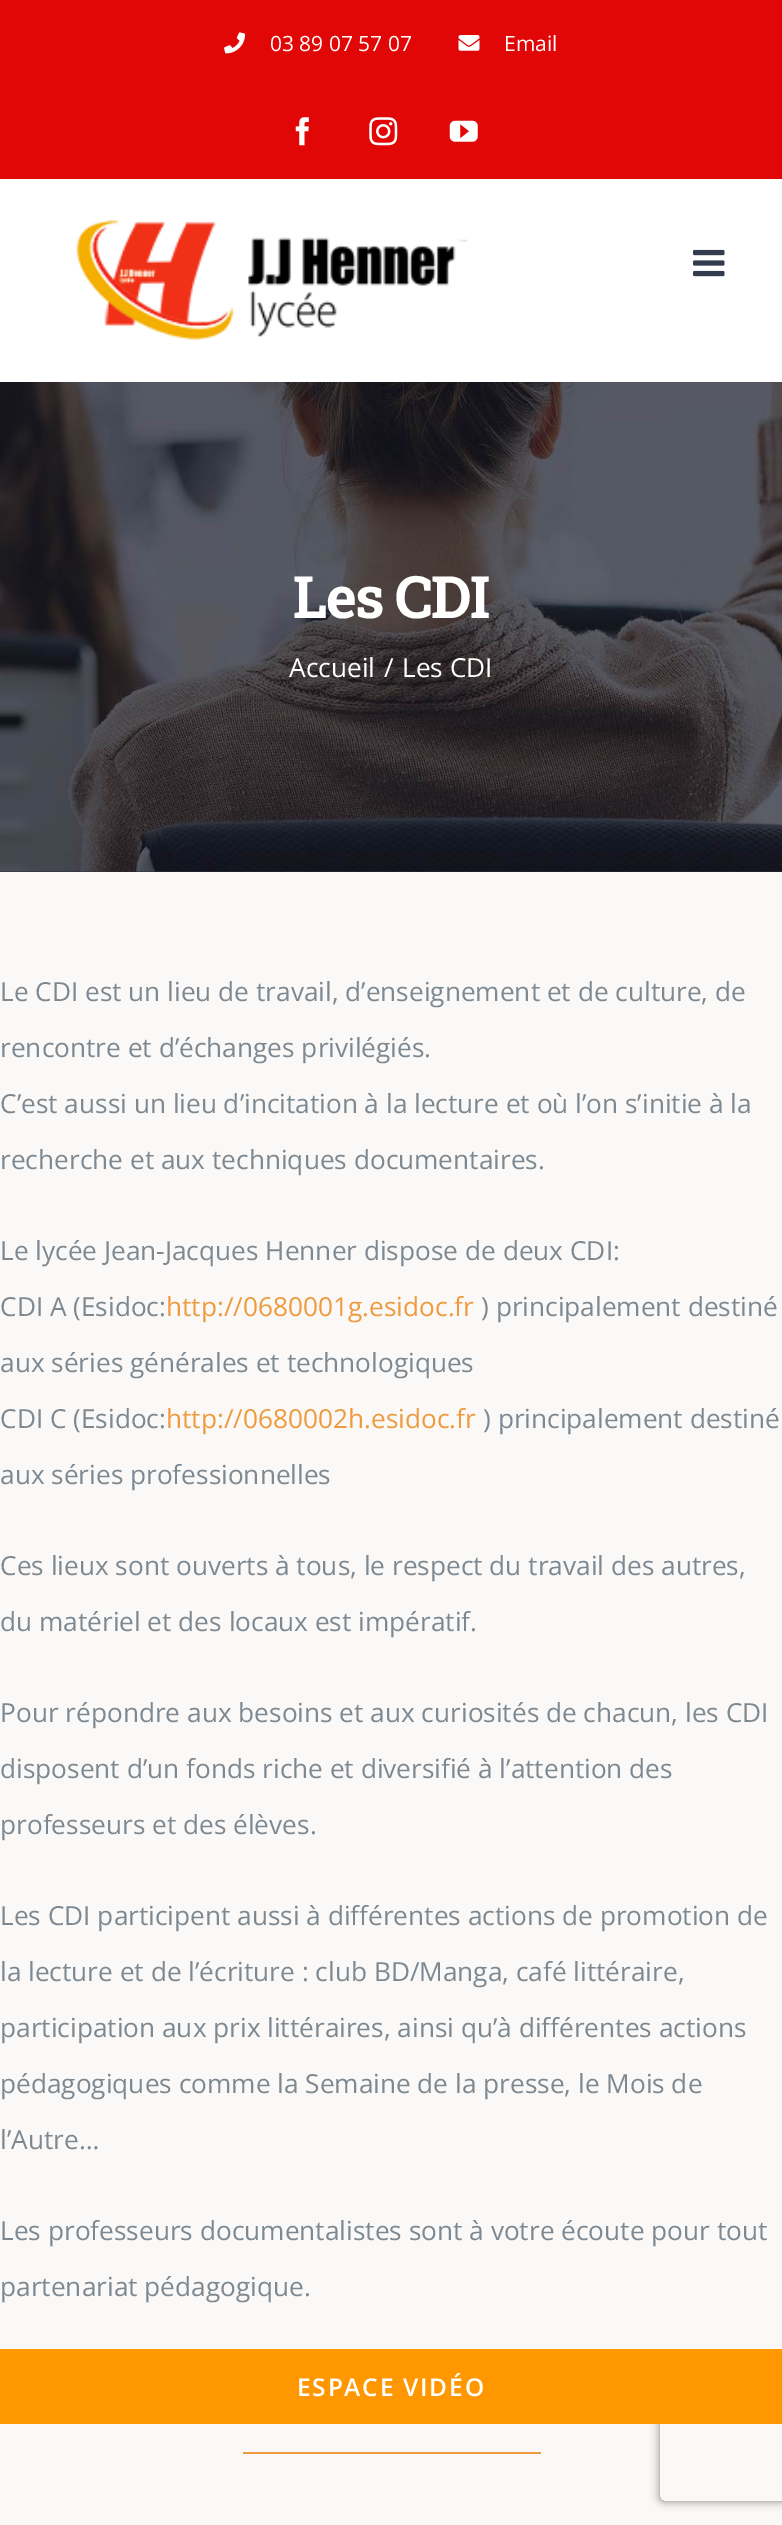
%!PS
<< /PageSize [782 2525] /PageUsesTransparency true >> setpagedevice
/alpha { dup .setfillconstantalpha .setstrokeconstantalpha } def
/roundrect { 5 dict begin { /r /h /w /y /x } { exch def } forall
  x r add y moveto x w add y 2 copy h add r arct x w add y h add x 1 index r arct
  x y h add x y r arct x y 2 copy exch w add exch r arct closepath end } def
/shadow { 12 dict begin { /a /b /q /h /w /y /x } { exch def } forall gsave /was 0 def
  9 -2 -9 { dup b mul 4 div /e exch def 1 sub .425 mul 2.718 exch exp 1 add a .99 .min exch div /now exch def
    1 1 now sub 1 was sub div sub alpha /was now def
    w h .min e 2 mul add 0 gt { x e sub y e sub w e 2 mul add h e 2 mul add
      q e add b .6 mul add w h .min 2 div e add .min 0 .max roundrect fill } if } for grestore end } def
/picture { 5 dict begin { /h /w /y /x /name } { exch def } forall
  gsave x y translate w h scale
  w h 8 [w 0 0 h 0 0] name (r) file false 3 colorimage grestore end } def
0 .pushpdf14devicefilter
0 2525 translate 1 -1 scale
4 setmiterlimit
0.98 0.976 0.973 setrgbcolor
0 0 782 2525 rectfill
0.882 0.027 0.027 setrgbcolor
0 0 782 179 rectfill
(img1.rgb) 224 32 21 22 picture
/OpenSans-Regular [21 0 0 -21 0 0] selectfont
1 setgray
270 51 moveto (03 89 07 57 07) show
(img2.rgb) 458 35 22 16 picture
504 51 moveto (Email) show
(img3.rgb) 295 117 14 29 picture
(img4.rgb) 369 117 29 29 picture
(img5.rgb) 449 120 29 22 picture
0 179 782 203 rectfill
(img6.rgb) 76 220 392 120 picture
(img7.rgb) 693 249 32 28 picture
0.173 0.184 0.224 setrgbcolor
0 871 782 1 rectfill
(img8.rgb) 0 382 782 490 picture
/RobotoSlab-Bold [58.5 0 0 -58.5 0 0] selectfont
1 setgray
293 618 moveto -1.75 0 (Les CDI) ashow
/OpenSans-Regular [26.25 0 0 -26.25 0 0] selectfont
289 677 moveto (Accueil) show
384 677 moveto (/) show
402 677 moveto (Les CDI) show
0.494 0.533 0.565 setrgbcolor
0 1001 moveto (Le CDI est un lieu de travail, d’enseignement et de culture, de) show
0 1057 moveto (rencontre et d’échanges privilégiés.) show
0 1113 moveto (C’est aussi un lieu d’incitation à la lecture et où l’on s’initie à la) show
0 1169 moveto (recherche et aux techniques documentaires.) show
0 1260 moveto (Le lycée Jean-Jacques Henner dispose de deux CDI:) show
0 1316 moveto (CDI A \(Esidoc:) show
0.937 0.604 0.239 setrgbcolor
166 1316 moveto (http://0680001g.esidoc.fr) show
0.494 0.533 0.565 setrgbcolor
481 1316 moveto (\) principalement destiné) show
0 1372 moveto (aux séries générales et technologiques) show
0 1428 moveto (CDI C \(Esidoc:) show
0.937 0.604 0.239 setrgbcolor
166 1428 moveto (http://0680002h.esidoc.fr) show
0.494 0.533 0.565 setrgbcolor
483 1428 moveto (\) principalement destiné) show
0 1484 moveto (aux séries professionnelles) show
0 1575 moveto (Ces lieux sont ouverts à tous, le respect du travail des autres,) show
0 1631 moveto (du matériel et des locaux est impératif.) show
0 1722 moveto (Pour répondre aux besoins et aux curiosités de chacun, les CDI) show
0 1778 moveto (disposent d’un fonds riche et diversifié à l’attention des) show
0 1834 moveto (professeurs et des élèves.) show
0 1925 moveto (Les CDI participent aussi à différentes actions de promotion de) show
0 1981 moveto (la lecture et de l’écriture : club BD/Manga, café littéraire,) show
0 2037 moveto (participation aux prix littéraires, ainsi qu’à différentes actions) show
0 2093 moveto (pédagogiques comme la Semaine de la presse, le Mois de) show
0 2149 moveto (l’Autre…) show
0 2240 moveto (Les professeurs documentalistes sont à votre écoute pour tout) show
0 2296 moveto (partenariat pédagogique.) show
gsave
newpath 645 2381 moveto 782 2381 lineto 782 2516 lineto 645 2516 lineto closepath 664 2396 moveto 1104 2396 lineto 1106 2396 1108 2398 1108 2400 curveto 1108 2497 lineto 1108 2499 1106 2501 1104 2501 curveto 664 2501 lineto 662 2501 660 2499 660 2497 curveto 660 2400 lineto 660 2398 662 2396 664 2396 curveto closepath eoclip newpath
0.502 setgray
660 2396 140 105 4 4.5 1 shadow
grestore
1 0.596 0 setrgbcolor
0 2349 782 75 rectfill
/OpenSans-SemiBold [24.5 0 0 -24.5 0 0] selectfont
1 setgray
297 2396 moveto 1.75 0 (ESPACE VIDÉO) ashow
0.937 0.604 0.239 setrgbcolor
243 2452 298 2 rectfill
.poppdf14devicefilter showpage
